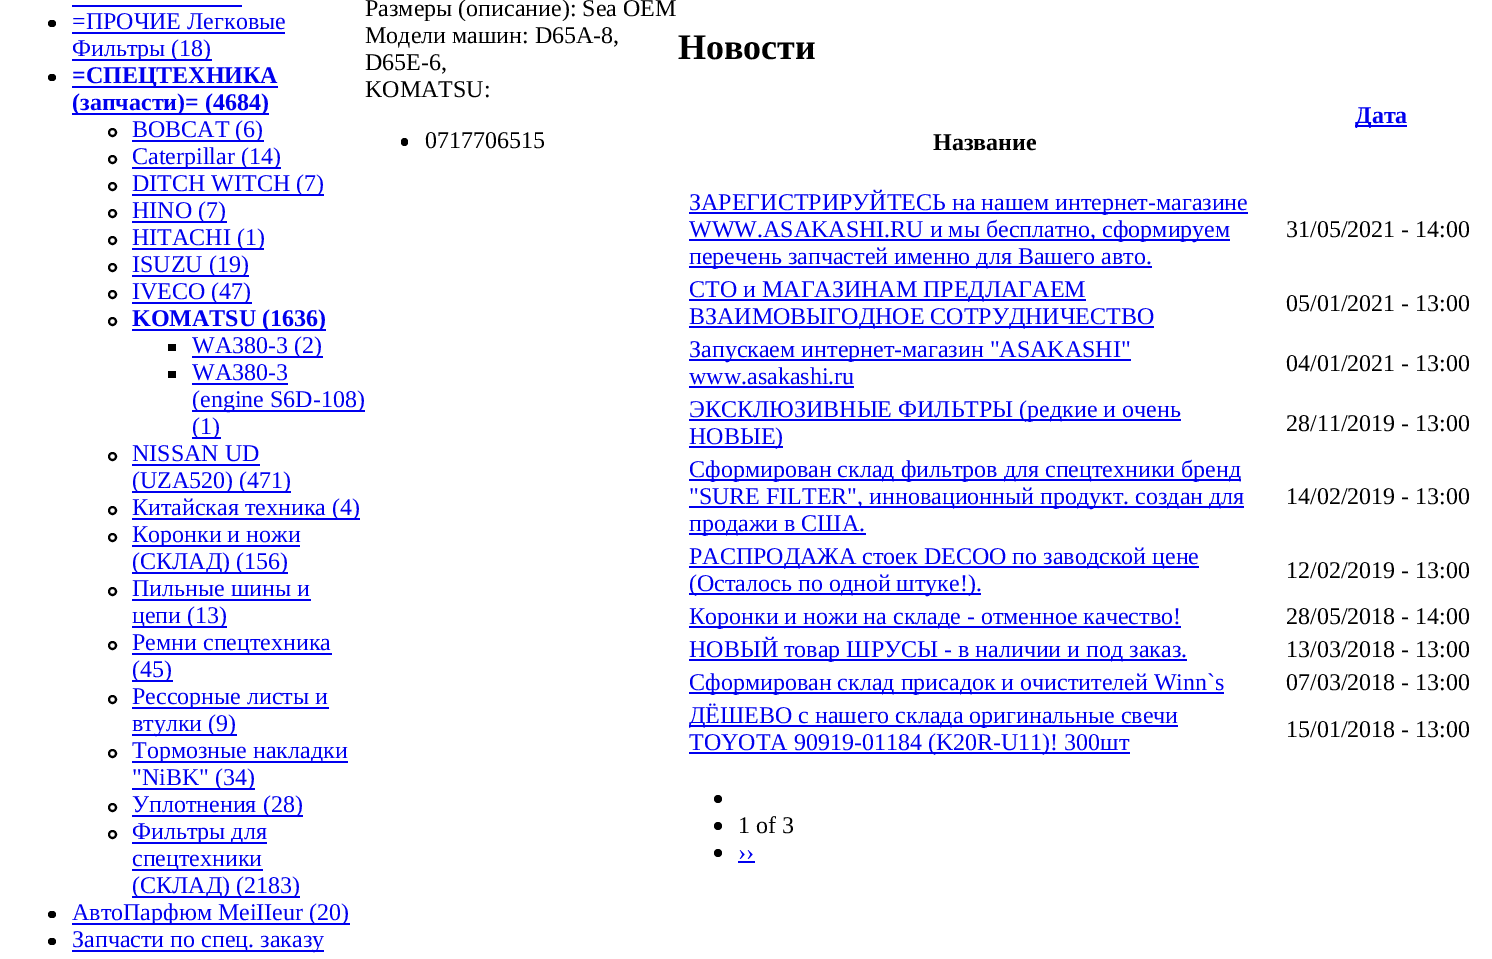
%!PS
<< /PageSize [1492 959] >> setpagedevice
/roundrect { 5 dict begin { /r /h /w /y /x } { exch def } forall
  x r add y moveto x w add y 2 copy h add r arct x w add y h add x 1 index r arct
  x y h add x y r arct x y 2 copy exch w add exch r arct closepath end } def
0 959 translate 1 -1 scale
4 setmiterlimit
1 setgray
0 0 1492 959 rectfill
0 0 0.933 setrgbcolor
72 5 170 2 rectfill
0 setgray
48 20 8 7 3.5 roundrect fill
/LiberationSerif-Regular [24 0 0 -24 0 0] selectfont
0 0 0.933 setrgbcolor
72 29 moveto (=ПРОЧИЕ Легковые) show
72 32 213 2 rectfill
72 59 140 2 rectfill
72 56 moveto (Фильтры \(18\)) show
0 setgray
48 74 8 7 3.5 roundrect fill
0 0 0.933 setrgbcolor
72 86 206 2 rectfill
/LiberationSerif-Bold [24 0 0 -24 0 0] selectfont
72 83 moveto (=СПЕЦТЕХНИКА) show
72 113 197 2 rectfill
72 110 moveto (\(запчасти\)= \(4684\)) show
0 setgray
2 setlinewidth
newpath 112.5 132.5 3.5 0 360 arc closepath stroke
0 0 0.933 setrgbcolor
132 140 132 2 rectfill
/LiberationSerif-Regular [24 0 0 -24 0 0] selectfont
132 137 moveto (BOBCAT \(6\)) show
0 setgray
newpath 112.5 159.5 3.5 0 360 arc closepath stroke
0 0 0.933 setrgbcolor
132 167 149 2 rectfill
132 164 moveto (Caterpillar \(14\)) show
0 setgray
newpath 112.5 186.5 3.5 0 360 arc closepath stroke
0 0 0.933 setrgbcolor
132 194 192 2 rectfill
132 191 moveto (DITCH WITCH \(7\)) show
0 setgray
newpath 112.5 213.5 3.5 0 360 arc closepath stroke
0 0 0.933 setrgbcolor
132 221 95 2 rectfill
132 218 moveto (HINO \(7\)) show
0 setgray
newpath 112.5 240.5 3.5 0 360 arc closepath stroke
0 0 0.933 setrgbcolor
132 248 132 2 rectfill
132 245 moveto (HITACHI \(1\)) show
0 setgray
newpath 112.5 267.5 3.5 0 360 arc closepath stroke
0 0 0.933 setrgbcolor
132 275 117 2 rectfill
132 272 moveto (ISUZU \(19\)) show
0 setgray
newpath 112.5 294.5 3.5 0 360 arc closepath stroke
0 0 0.933 setrgbcolor
132 302 120 2 rectfill
132 299 moveto (IVECO \(47\)) show
0 setgray
newpath 112.5 321.5 3.5 0 360 arc closepath stroke
0 0 0.933 setrgbcolor
132 329 194 2 rectfill
/LiberationSerif-Bold [24 0 0 -24 0 0] selectfont
132 326 moveto (KOMATSU \(1636\)) show
0 setgray
168 344 8 7 rectfill
0 0 0.933 setrgbcolor
192 356 131 2 rectfill
/LiberationSerif-Regular [24 0 0 -24 0 0] selectfont
192 353 moveto (WA380-3 \(2\)) show
0 setgray
168 371 8 7 rectfill
0 0 0.933 setrgbcolor
192 380 moveto (WA380-3) show
192 383 96 2 rectfill
192 410 173 2 rectfill
192 407 moveto (\(engine S6D-108\)) show
192 437 29 2 rectfill
192 434 moveto (\(1\)) show
0 setgray
newpath 112.5 456.5 3.5 0 360 arc closepath stroke
0 0 0.933 setrgbcolor
132 461 moveto (NISSAN UD) show
132 464 128 2 rectfill
132 491 159 2 rectfill
132 488 moveto (\(UZA520\) \(471\)) show
0 setgray
newpath 112.5 510.5 3.5 0 360 arc closepath stroke
0 0 0.933 setrgbcolor
132 518 228 2 rectfill
132 515 moveto (Китайская техника \(4\)) show
0 setgray
newpath 112.5 537.5 3.5 0 360 arc closepath stroke
0 0 0.933 setrgbcolor
132 545 168 2 rectfill
132 542 moveto (Коронки и ножи) show
132 572 156 2 rectfill
132 569 moveto (\(СКЛАД\) \(156\)) show
0 setgray
newpath 112.5 591.5 3.5 0 360 arc closepath stroke
0 0 0.933 setrgbcolor
132 596 moveto (Пильные шины и) show
132 599 179 2 rectfill
132 626 95 2 rectfill
132 623 moveto (цепи \(13\)) show
0 setgray
newpath 112.5 645.5 3.5 0 360 arc closepath stroke
0 0 0.933 setrgbcolor
132 653 200 2 rectfill
132 650 moveto (Ремни спецтехника) show
132 680 41 2 rectfill
132 677 moveto (\(45\)) show
0 setgray
newpath 112.5 699.5 3.5 0 360 arc closepath stroke
0 0 0.933 setrgbcolor
132 707 197 2 rectfill
132 704 moveto (Рессорные листы и) show
132 734 105 2 rectfill
132 731 moveto (втулки \(9\)) show
0 setgray
newpath 112.5 753.5 3.5 0 360 arc closepath stroke
0 0 0.933 setrgbcolor
132 761 216 2 rectfill
132 758 moveto (Тормозные накладки) show
132 788 123 2 rectfill
132 785 moveto ("NiBK" \(34\)) show
0 setgray
newpath 112.5 807.5 3.5 0 360 arc closepath stroke
0 0 0.933 setrgbcolor
132 815 171 2 rectfill
132 812 moveto (Уплотнения \(28\)) show
0 setgray
newpath 112.5 834.5 3.5 0 360 arc closepath stroke
0 0 0.933 setrgbcolor
132 842 135 2 rectfill
132 839 moveto (Фильтры для) show
132 869 131 2 rectfill
132 866 moveto (спецтехники) show
132 896 168 2 rectfill
132 893 moveto (\(СКЛАД\) \(2183\)) show
0 setgray
48 911 8 7 3.5 roundrect fill
0 0 0.933 setrgbcolor
72 923 278 2 rectfill
72 920 moveto (АвтоПарфюм MeiIIeur \(20\)) show
0 setgray
48 938 8 7 3.5 roundrect fill
0 0 0.933 setrgbcolor
72 950 252 2 rectfill
72 947 moveto (Запчасти по спец. заказу) show
0 setgray
365 16 moveto (Размеры \(описание\): Sea OEM) show
365 43 moveto (Модели машин: D65A-8,) show
365 70 moveto (D65E-6,) show
365 97 moveto (KOMATSU:) show
401 138 7 8 3.5 roundrect fill
425 148 moveto (0717706515) show
/LiberationSerif-Bold [36 0 0 -36 0 0] selectfont
678 59 moveto (Новости) show
0 0 0.933 setrgbcolor
1355 125 52 2 rectfill
/LiberationSerif-Bold [24 0 0 -24 0 0] selectfont
1355 123 moveto (Дата) show
0 setgray
933 150 moveto (Название) show
0 0 0.933 setrgbcolor
689 212 559 2 rectfill
/LiberationSerif-Regular [24 0 0 -24 0 0] selectfont
689 210 moveto (ЗАРЕГИСТРИРУЙТЕСЬ на нашем интернет-магазине) show
689 239 541 2 rectfill
689 237 moveto (WWW.ASAKASHI.RU и мы бесплатно, сформируем) show
689 266 463 2 rectfill
689 264 moveto (перечень запчастей именно для Вашего авто.) show
0 setgray
1286 237 moveto (31/05/2021 - 14:00) show
0 0 0.933 setrgbcolor
689 299 397 2 rectfill
689 297 moveto (СТО и МАГАЗИНАМ ПРЕДЛАГАЕМ) show
689 326 465 2 rectfill
689 324 moveto (ВЗАИМОВЫГОДНОЕ СОТРУДНИЧЕСТВО) show
0 setgray
1286 311 moveto (05/01/2021 - 13:00) show
0 0 0.933 setrgbcolor
689 359 442 2 rectfill
689 357 moveto (Запускаем интернет-магазин "ASAKASHI") show
689 384 moveto (www.asakashi.ru) show
689 386 165 2 rectfill
0 setgray
1286 371 moveto (04/01/2021 - 13:00) show
0 0 0.933 setrgbcolor
689 419 492 2 rectfill
689 417 moveto (ЭКСКЛЮЗИВНЫЕ ФИЛЬТРЫ \(редкие и очень) show
689 446 94 2 rectfill
689 444 moveto (НОВЫЕ\)) show
0 setgray
1286 431 moveto (28/11/2019 - 13:00) show
0 0 0.933 setrgbcolor
689 479 552 2 rectfill
689 477 moveto (Сформирован склад фильтров для спецтехники бренд) show
689 506 555 2 rectfill
689 504 moveto ("SURE FILTER", инновационный продукт. создан для) show
689 533 177 2 rectfill
689 531 moveto (продажи в США.) show
0 setgray
1286 504 moveto (14/02/2019 - 13:00) show
0 0 0.933 setrgbcolor
689 566 510 2 rectfill
689 564 moveto (РАСПРОДАЖА стоек DECOO по заводской цене) show
689 593 292 2 rectfill
689 591 moveto (\(Осталось по одной штуке!\).) show
0 setgray
1286 578 moveto (12/02/2019 - 13:00) show
0 0 0.933 setrgbcolor
689 626 492 2 rectfill
689 624 moveto (Коронки и ножи на складе - отменное качество!) show
0 setgray
1286 624 moveto (28/05/2018 - 14:00) show
0 0 0.933 setrgbcolor
689 659 498 2 rectfill
689 657 moveto (НОВЫЙ товар ШРУСЫ - в наличии и под заказ.) show
0 setgray
1286 657 moveto (13/03/2018 - 13:00) show
0 0 0.933 setrgbcolor
689 692 535 2 rectfill
689 690 moveto (Сформирован склад присадок и очистителей Winn`s) show
0 setgray
1286 690 moveto (07/03/2018 - 13:00) show
0 0 0.933 setrgbcolor
689 725 489 2 rectfill
689 723 moveto (ДЁШЕВО с нашего склада оригинальные свечи) show
689 752 441 2 rectfill
689 750 moveto (TOYOTA 90919-01184 \(K20R-U11\)! 300шт) show
0 setgray
1286 737 moveto (15/01/2018 - 13:00) show
newpath 718 799 4 0 360 arc closepath fill
newpath 718 826 4 0 360 arc closepath fill
738 833 moveto (1 of 3) show
newpath 718 853 4 0 360 arc closepath fill
0 0 0.933 setrgbcolor
738 860 moveto (››) show
738 861 17 2 rectfill
showpage
